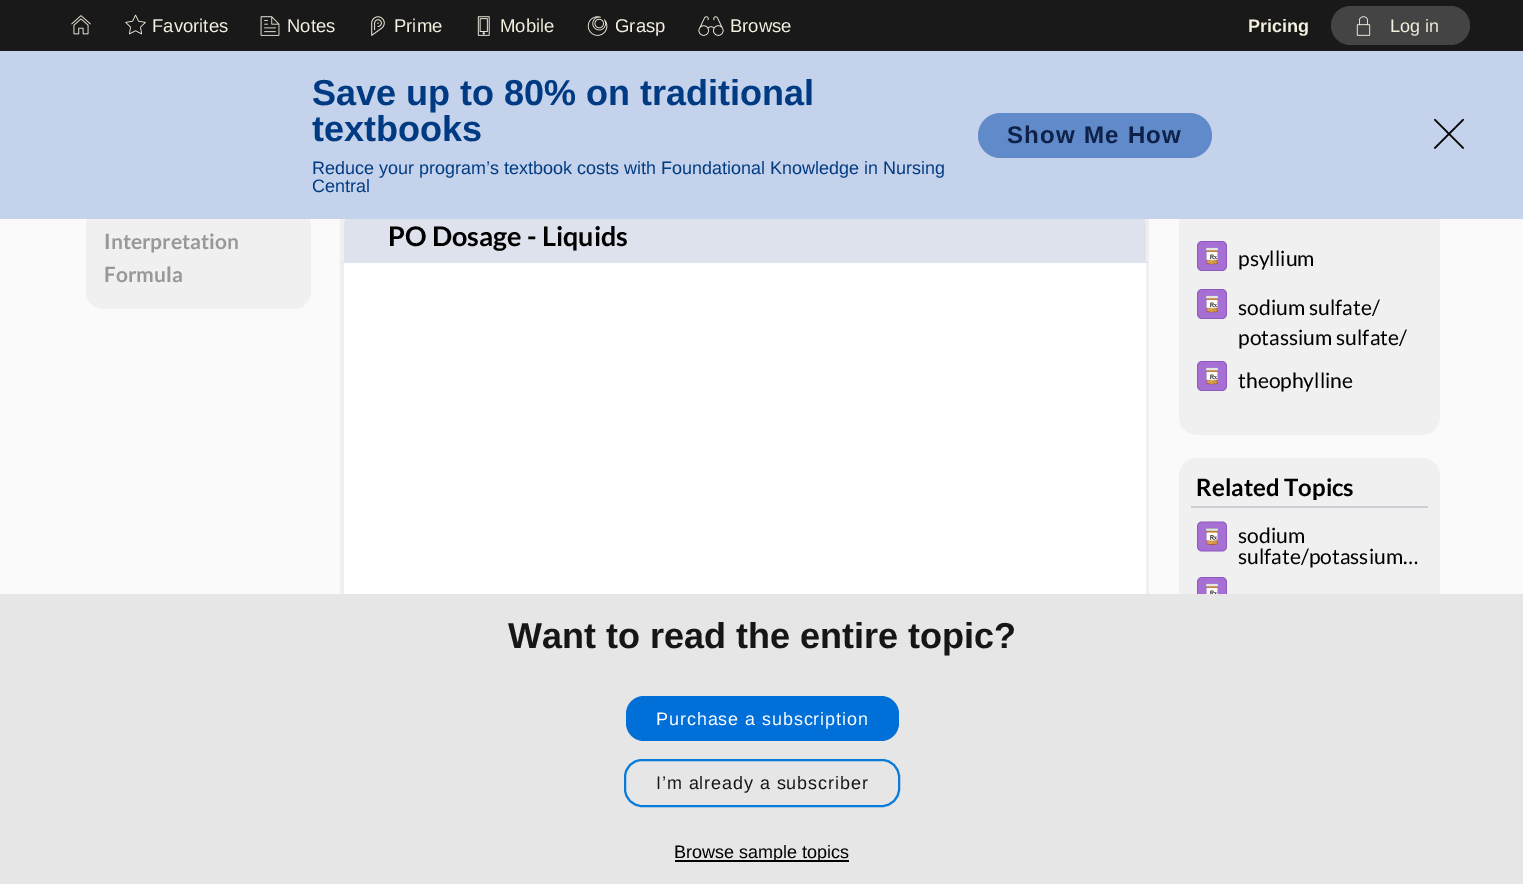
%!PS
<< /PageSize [1523 884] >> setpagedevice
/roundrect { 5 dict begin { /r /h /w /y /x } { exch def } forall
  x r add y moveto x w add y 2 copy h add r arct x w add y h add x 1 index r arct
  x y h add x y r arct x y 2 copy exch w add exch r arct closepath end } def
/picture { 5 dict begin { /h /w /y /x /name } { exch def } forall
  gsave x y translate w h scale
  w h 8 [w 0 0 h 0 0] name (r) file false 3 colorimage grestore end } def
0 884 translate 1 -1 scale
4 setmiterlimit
0.98 setgray
0 0 1523 884 rectfill
1 setgray
344 263 802 331 rectfill
0.937 setgray
newpath 340 -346 moveto 1149 -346 lineto 1149 764 lineto 1149 780 1136 794 1119 794 curveto 370 794 lineto 354 794 340 780 340 764 curveto closepath 344 -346 moveto 1146 -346 lineto 1146 764 lineto 1146 778 1134 790 1119 790 curveto 370 790 lineto 356 790 344 778 344 764 curveto closepath eofill
0.941 setgray
1179 -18 261 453 18 roundrect fill
0.098 setgray
0 0 1523 51 rectfill
(img1.rgb) 71 15 20 20 picture
(img2.rgb) 125 14 21 21 picture
/LiberationSans-Regular [18.5 0 0 -18.5 0 0] selectfont
0.961 0.937 0.878 setrgbcolor
152 32 moveto (Favorites) show
(img3.rgb) 260 16 20 20 picture
287 32 moveto (Notes) show
(img4.rgb) 371 16 14 20 picture
394 32 moveto (Prime) show
(img5.rgb) 477 16 13 20 picture
500 32 moveto (Mobile) show
(img6.rgb) 587 16 21 20 picture
615 32 moveto (Grasp) show
(img7.rgb) 698 16 26 20 picture
730 32 moveto (Browse) show
/LiberationSans-Bold [18 0 0 -18 0 0] selectfont
1248 32 moveto (Pricing) show
0.267 setgray
1331 6 139 39 19.5 roundrect fill
(img8.rgb) 1356 16 15 20 picture
/LiberationSans-Regular [18 0 0 -18 0 0] selectfont
0.961 0.937 0.878 setrgbcolor
1390 32 moveto (Log in) show
0.941 setgray
86 207 225 102 18 roundrect fill
0.98 setgray
340 219 809 33 rectfill
0.871 0.886 0.929 setrgbcolor
newpath 359 207 moveto 1131 207 lineto 1141 207 1149 215 1149 225 curveto 1149 263 lineto 341 263 lineto 341 225 lineto 341 215 349 207 359 207 curveto closepath fill
0.937 setgray
newpath 358 207 moveto 1131 207 lineto 1141 207 1149 215 1149 225 curveto 1149 262 lineto 340 262 lineto 340 225 lineto 340 215 349 207 358 207 curveto closepath 358 210 moveto 1131 210 lineto 1139 210 1146 217 1146 225 curveto 1146 262 lineto 344 262 lineto 344 225 lineto 344 217 350 210 358 210 curveto closepath eofill
0.769 0.824 0.922 setrgbcolor
0 51 1523 168 rectfill
/LiberationSans-Bold [36 0 0 -36 0 0] selectfont
0 0.227 0.51 setrgbcolor
312 105 moveto (Save up to 80% on traditional) show
312 141 moveto (textbooks) show
/LiberationSans-Regular [18 0 0 -18 0 0] selectfont
312 174 moveto (Reduce your program’s textbook costs with Foundational Knowledge in Nursing) show
312 192 moveto (Central) show
0.38 0.541 0.792 setrgbcolor
978 113 234 45 22.5 roundrect fill
/LiberationSans-Bold [24 0 0 -24 0 0] selectfont
0.055 0.129 0.282 setrgbcolor
1007 143 moveto 1.25 0 (Show Me How) ashow
(img9.rgb) 1434 118 30 31 picture
/Lato-Bold [21 0 0 -21 0 0] selectfont
0.596 setgray
104 249 moveto (Interpretation) show
104 282 moveto (Formula) show
/Lato-Bold [27 0 0 -27 0 0] selectfont
0 setgray
388 246 moveto (PO Dosage - Liquids) show
(img10.rgb) 1197 241 30 30 picture
/Lato-Regular [21 0 0 -21 0 0] selectfont
1238 266 moveto (psyllium) show
(img10.rgb) 1197 289 30 30 picture
1238 315 moveto (sodium sulfate/) show
1238 345 moveto (potassium sulfate/) show
(img10.rgb) 1197 361 30 30 picture
1238 388 moveto (theophylline) show
0.941 setgray
1179 458 261 336 18 roundrect fill
0.8 0.812 0.827 setrgbcolor
1191 506 237 2 rectfill
/Lato-Bold [24 0 0 -24 0 0] selectfont
0 setgray
1196 496 moveto (Related Topics) show
(img11.rgb) 1197 521 30 31 picture
/Lato-Regular [21 0 0 -21 0 0] selectfont
1238 543 moveto (sodium) show
1238 564 moveto (sulfate/potassium…) show
(img12.rgb) 1197 577 30 17 picture
0.902 setgray
0 594 1523 290 rectfill
/LiberationSans-Bold [36 0 0 -36 0 0] selectfont
0.086 setgray
508 648 moveto (Want to read the entire topic?) show
0 0.435 0.847 setrgbcolor
626 696 273 45 18 roundrect fill
/LiberationSans-Regular [18 0 0 -18 0 0] selectfont
1 setgray
656 725 moveto 0.9 0 (Purchase a subscription) ashow
0.035 0.482 0.851 setrgbcolor
2 setlinewidth
625 760 274 46 17 roundrect stroke
0.086 setgray
656 789 moveto 0.9 0 (I’m already a subscriber) ashow
0 setgray
675 860 174 2 rectfill
674 858 moveto (Browse sample topics) show
showpage
